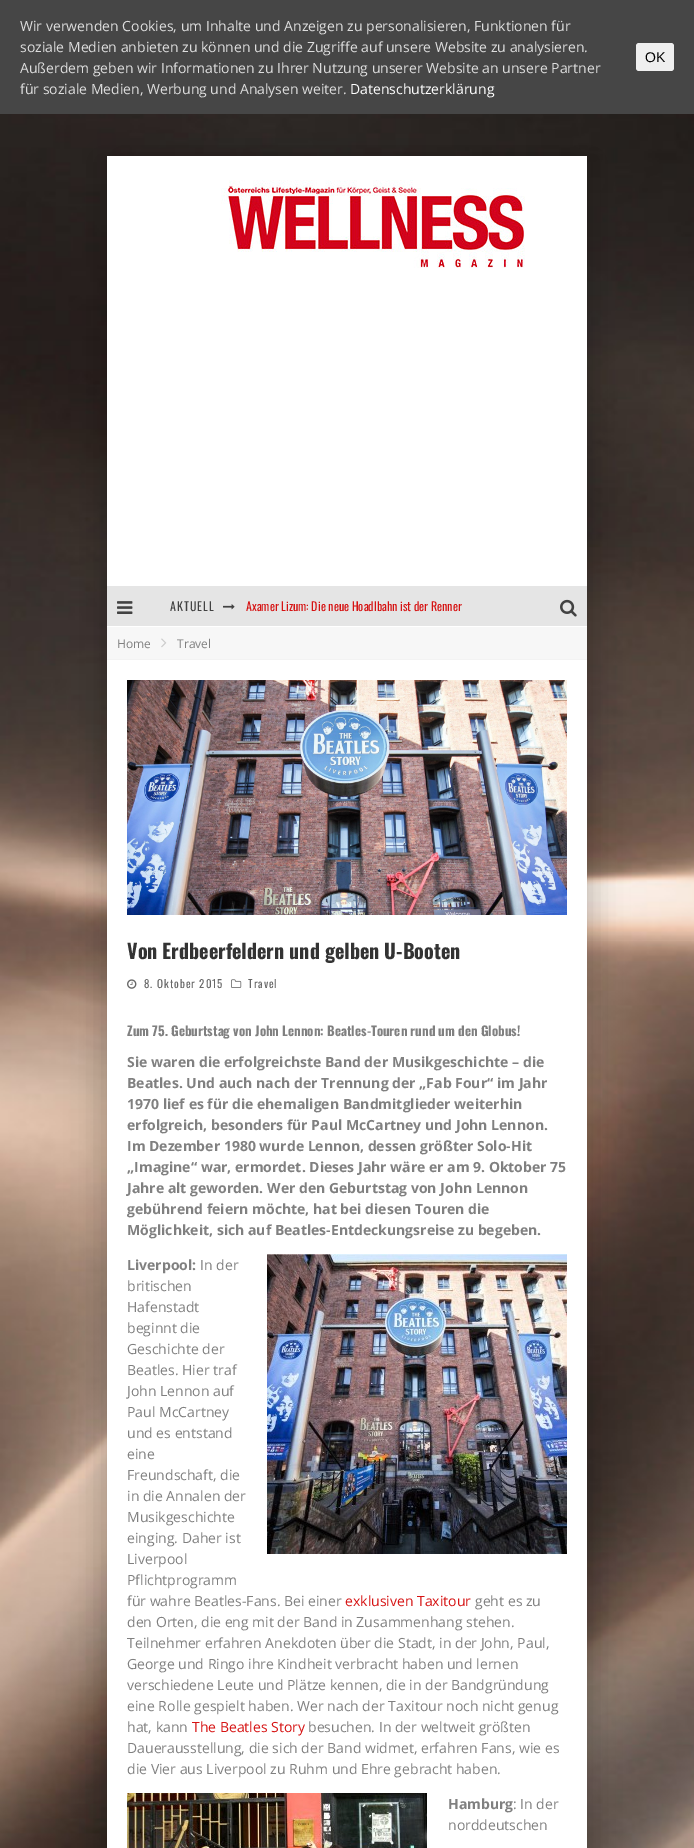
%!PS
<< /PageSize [694 1848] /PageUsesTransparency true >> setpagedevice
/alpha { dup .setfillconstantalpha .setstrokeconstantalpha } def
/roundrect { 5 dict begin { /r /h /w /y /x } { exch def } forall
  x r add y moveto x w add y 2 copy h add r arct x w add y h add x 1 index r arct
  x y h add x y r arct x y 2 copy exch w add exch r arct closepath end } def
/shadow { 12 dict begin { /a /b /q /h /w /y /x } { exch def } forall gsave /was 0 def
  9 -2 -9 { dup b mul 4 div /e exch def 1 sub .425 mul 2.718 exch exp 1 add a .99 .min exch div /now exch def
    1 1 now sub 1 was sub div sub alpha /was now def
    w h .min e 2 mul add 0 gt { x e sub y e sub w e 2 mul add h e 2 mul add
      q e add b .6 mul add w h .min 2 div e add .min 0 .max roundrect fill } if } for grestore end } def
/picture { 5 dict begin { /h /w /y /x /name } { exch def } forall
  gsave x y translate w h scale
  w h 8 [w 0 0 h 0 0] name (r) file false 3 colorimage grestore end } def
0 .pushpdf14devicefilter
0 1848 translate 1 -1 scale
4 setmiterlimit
1 setgray
0 0 694 1848 rectfill
(img1.rgb) 0 114 694 1734 picture
0 setgray
97 156 480 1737 0 15 0.15 shadow
117 156 480 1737 0 15 0.15 shadow
0.275 setgray
0 0 694 114 rectfill
/OpenSans-Regular [14 0 0 -14 0 0] selectfont
0.867 setgray
20 31 moveto (Wir verwenden Cookies, um Inhalte und Anzeigen zu personalisieren, Funktionen für) show
20 52 moveto (soziale Medien anbieten zu können und die Zugriffe auf unsere Website zu analysieren.) show
20 73 moveto (Außerdem geben wir Informationen zu Ihrer Nutzung unserer Website an unsere Partner) show
20 94 moveto (für soziale Medien, Werbung und Analysen weiter.) show
1 setgray
350 94 moveto (Datenschutzerklärung) show
0.937 setgray
636 43 38 28 3 roundrect fill
/LiberationSans-Regular [14 0 0 -14 0 0] selectfont
0 setgray
645 62 moveto (OK) show
1 setgray
107 156 480 471 rectfill
(img2.rgb) 221 180 304 88 picture
0.898 setgray
107 586 480 40 rectfill
(img3.rgb) 117 601 16 13 picture
/Oswald-Regular [12 0 0 -12 0 0] selectfont
0.259 setgray
170 611 moveto 1 0 (AKTUELL) ashow
(img4.rgb) 223 604 12 6 picture
0.839 0.075 0.075 setrgbcolor
246 611 moveto (Axamer Lizum: Die neue Hoadlbahn ist der Renner) show
(img5.rgb) 560 599 17 18 picture
0.969 setgray
107 627 480 32 rectfill
0.953 setgray
107 659 480 1 rectfill
/OpenSans-Regular [12 0 0 -12 0 0] selectfont
0.502 setgray
117 648 moveto (Home) show
(img6.rgb) 161 638 6 10 picture
177 648 moveto (Travel) show
1 setgray
107 660 480 1188 rectfill
(img7.rgb) 127 680 440 235 picture
/Oswald-Bold [20 0 0 -20 0 0] selectfont
0.2 setgray
127 959 moveto (Von Erdbeerfeldern und gelben U-Booten) show
(img8.rgb) 127 979 10 10 picture
/Oswald-Regular [11 0 0 -11 0 0] selectfont
0.404 setgray
144 988 moveto 1 0 (8. Oktober 2015) ashow
(img9.rgb) 231 979 11 9 picture
248 988 moveto 1 0 (Travel) ashow
/Oswald-Bold [13 0 0 -13 0 0] selectfont
0.502 setgray
127 1036 moveto (Zum 75. Geburtstag von John Lennon: Beatles-Touren rund um den Globus!) show
/OpenSans-Bold [14 0 0 -14 0 0] selectfont
127 1067 moveto (Sie waren die erfolgreichste Band der Musikgeschichte – die) show
127 1088 moveto (Beatles. Und auch nach der Trennung der „Fab Four“ im Jahr) show
127 1109 moveto (1970 lief es für die ehemaligen Bandmitglieder weiterhin) show
127 1130 moveto (erfolgreich, besonders für Paul McCartney und John Lennon.) show
127 1151 moveto (Im Dezember 1980 wurde Lennon, dessen größter Solo-Hit) show
127 1172 moveto („Imagine“ war, ermordet. Dieses Jahr wäre er am 9. Oktober 75) show
127 1193 moveto (Jahre alt geworden. Wer den Geburtstag von John Lennon) show
127 1214 moveto (gebührend feiern möchte, hat bei diesen Touren die) show
127 1235 moveto (Möglichkeit, sich auf Beatles-Entdeckungsreise zu begeben.) show
127 1270 moveto (Liverpool:) show
(img10.rgb) 267 1254 300 300 picture
/OpenSans-Regular [14 0 0 -14 0 0] selectfont
200 1270 moveto (In der) show
127 1291 moveto (britischen) show
127 1312 moveto (Hafenstadt) show
127 1333 moveto (beginnt die) show
127 1354 moveto (Geschichte der) show
127 1375 moveto (Beatles. Hier traf) show
127 1396 moveto (John Lennon auf) show
127 1417 moveto (Paul McCartney) show
127 1438 moveto (und es entstand) show
127 1459 moveto (eine) show
127 1480 moveto (Freundschaft, die) show
127 1501 moveto (in die Annalen der) show
127 1522 moveto (Musikgeschichte) show
127 1543 moveto (einging. Daher ist) show
127 1564 moveto (Liverpool) show
127 1585 moveto (Pflichtprogramm) show
127 1606 moveto (für wahre Beatles-Fans. Bei einer) show
0.839 0.075 0.075 setrgbcolor
345 1606 moveto (exklusiven Taxitour) show
0.502 setgray
475 1606 moveto (geht es zu) show
127 1627 moveto (den Orten, die eng mit der Band in Zusammenhang stehen.) show
127 1648 moveto (Teilnehmer erfahren Anekdoten über die Stadt, in der John, Paul,) show
127 1669 moveto (George und Ringo ihre Kindheit verbracht haben und lernen) show
127 1690 moveto (verschiedene Leute und Plätze kennen, die in der Bandgründung) show
127 1711 moveto (eine Rolle gespielt haben. Wer nach der Taxitour noch nicht genug) show
127 1732 moveto (hat, kann) show
0.839 0.075 0.075 setrgbcolor
192 1732 moveto (The Beatles Story) show
0.502 setgray
308 1732 moveto (besuchen. In der weltweit größten) show
127 1753 moveto (Dauerausstellung, die sich der Band widmet, erfahren Fans, wie es) show
127 1774 moveto (die Vier aus Liverpool zu Ruhm und Ehre gebracht haben.) show
(img11.rgb) 127 1793 300 55 picture
/OpenSans-Bold [14 0 0 -14 0 0] selectfont
448 1809 moveto (Hamburg) show
/OpenSans-Regular [14 0 0 -14 0 0] selectfont
513 1809 moveto (: In der) show
448 1830 moveto (norddeutschen) show
.poppdf14devicefilter showpage
